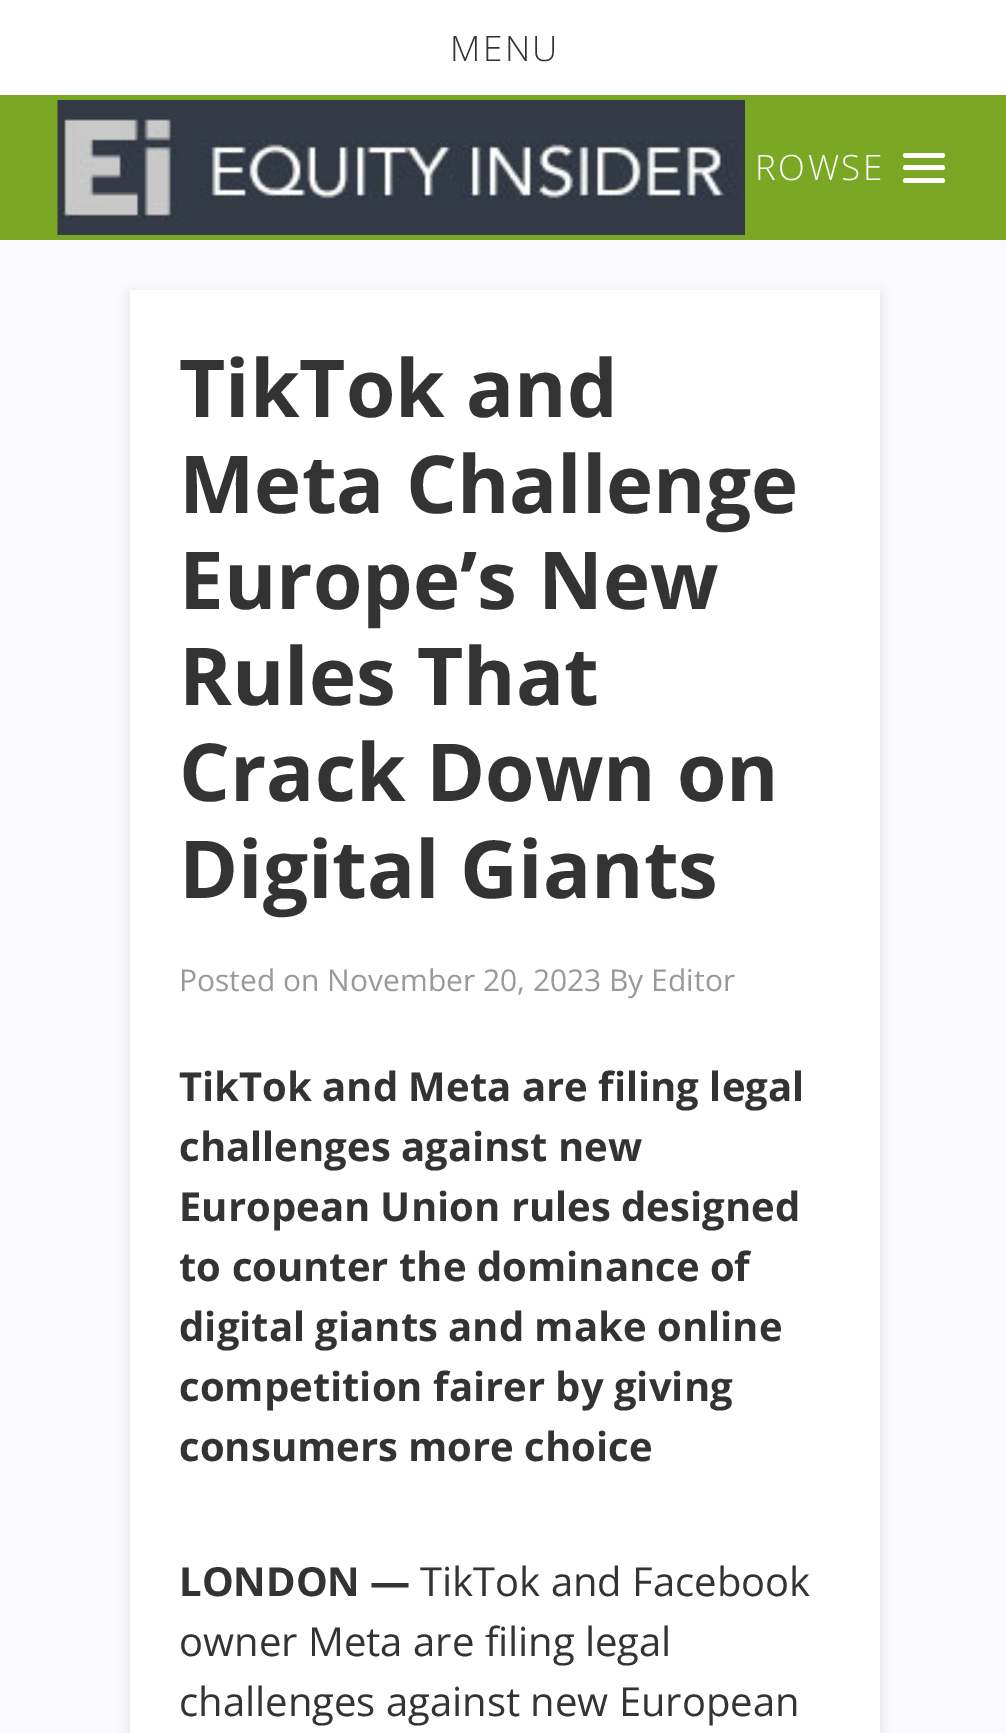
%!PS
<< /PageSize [1006 1733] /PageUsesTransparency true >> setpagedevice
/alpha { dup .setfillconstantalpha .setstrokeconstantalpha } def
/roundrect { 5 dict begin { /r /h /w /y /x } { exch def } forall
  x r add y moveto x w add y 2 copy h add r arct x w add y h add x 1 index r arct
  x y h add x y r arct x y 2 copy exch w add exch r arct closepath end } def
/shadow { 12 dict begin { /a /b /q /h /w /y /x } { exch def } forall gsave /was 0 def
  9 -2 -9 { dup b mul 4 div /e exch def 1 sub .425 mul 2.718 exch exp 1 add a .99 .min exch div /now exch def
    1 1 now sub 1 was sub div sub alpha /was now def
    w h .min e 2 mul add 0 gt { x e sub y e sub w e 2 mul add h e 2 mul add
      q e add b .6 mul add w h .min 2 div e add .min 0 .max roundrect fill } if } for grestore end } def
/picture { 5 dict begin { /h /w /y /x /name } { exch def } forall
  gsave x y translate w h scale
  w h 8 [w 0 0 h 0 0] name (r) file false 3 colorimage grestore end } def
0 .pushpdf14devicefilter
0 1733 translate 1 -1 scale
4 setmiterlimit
0.98 0.98 0.988 setrgbcolor
0 0 1006 1733 rectfill
1 setgray
0 0 1006 95 rectfill
/OpenSans-Light [35 0 0 -35 0 0] selectfont
0.2 setgray
450 61 moveto 2.5 0 (MENU) ashow
0.478 0.659 0.141 setrgbcolor
0 95 1006 145 rectfill
(img1.rgb) 57 100 688 135 picture
1 setgray
755 180 moveto 2.5 0 (ROWSE) ashow
903 153 42 5 2.5 roundrect fill
903 165 42 5 2.5 roundrect fill
903 178 42 5 2.5 roundrect fill
0.745 setgray
130 293 750 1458 0 6 0.46 shadow
1 setgray
130 290 750 1443 rectfill
/OpenSans-Bold [80 0 0 -80 0 0] selectfont
0.2 setgray
179 417 moveto (TikTok and) show
179 513 moveto (Meta Challenge) show
179 609 moveto (Europe’s New) show
179 705 moveto (Rules That) show
179 801 moveto (Crack Down on) show
179 898 moveto (Digital Giants) show
/OpenSans-Regular [30 0 0 -30 0 0] selectfont
0.6 setgray
179 991 moveto (Posted on November 20, 2023 By Editor) show
/OpenSans-Bold [40 0 0 -40 0 0] selectfont
0.2 setgray
179 1101 moveto (TikTok and Meta are filing legal) show
179 1161 moveto (challenges against new) show
179 1221 moveto (European Union rules designed) show
179 1281 moveto (to counter the dominance of) show
179 1341 moveto (digital giants and make online) show
179 1401 moveto (competition fairer by giving) show
179 1461 moveto (consumers more choice) show
179 1596 moveto (LONDON —) show
/OpenSans-Regular [40 0 0 -40 0 0] selectfont
420 1596 moveto (TikTok and Facebook) show
179 1656 moveto (owner Meta are filing legal) show
179 1716 moveto (challenges against new European) show
.poppdf14devicefilter showpage
